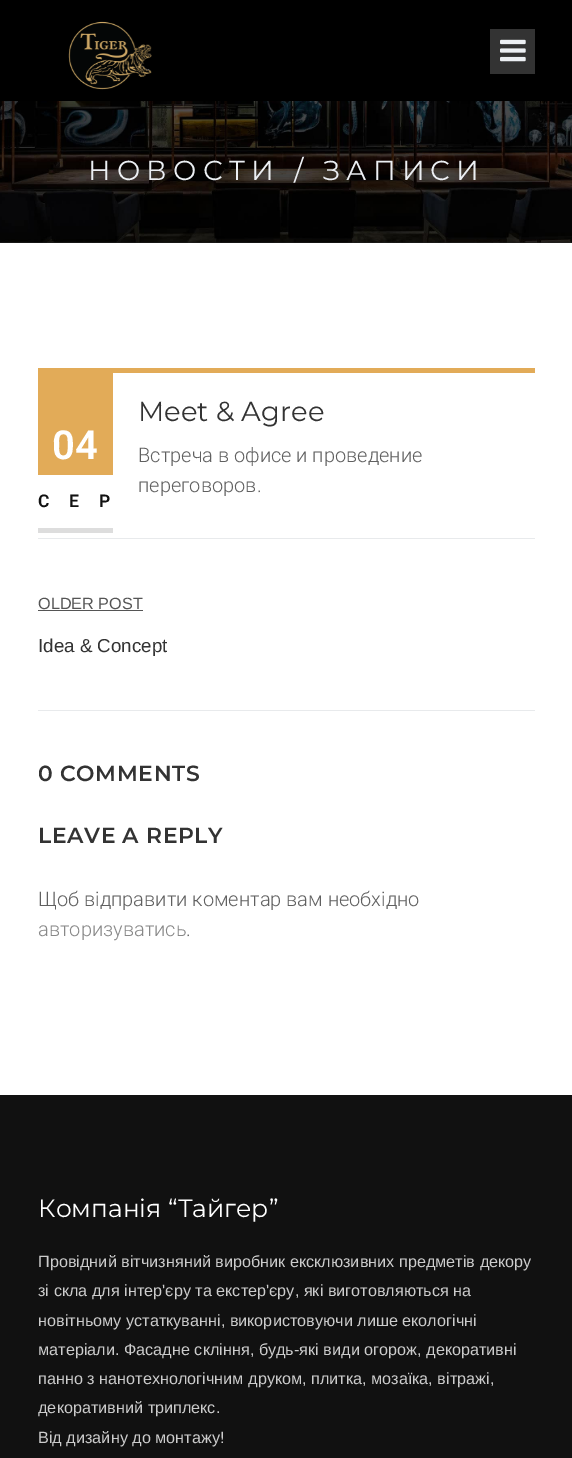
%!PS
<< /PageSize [572 1458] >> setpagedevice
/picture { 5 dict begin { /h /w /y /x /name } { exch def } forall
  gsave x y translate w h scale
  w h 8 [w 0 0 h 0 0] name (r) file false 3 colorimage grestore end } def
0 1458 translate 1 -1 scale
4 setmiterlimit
0.133 setgray
0 0 572 1458 rectfill
0 setgray
0 0 572 101 rectfill
(img1.rgb) 68 21 84 69 picture
0.2 setgray
490 29 45 45 rectfill
(img2.rgb) 500 39 26 23 picture
(img3.rgb) 0 101 572 142 picture
/Montserrat-Regular [27.5 0 0 -27.5 0 0] selectfont
0.925 0.937 0.953 setrgbcolor
88 180 moveto 6.25 0 (НОВОСТИ / ЗАПИСИ) ashow
1 setgray
0 243 572 852 rectfill
0.886 0.671 0.345 setrgbcolor
38 368 497 5 rectfill
38 373 75 102 rectfill
/Roboto-SemiBold [40 0 0 -40 0 0] selectfont
1 setgray
52 459 moveto (04) show
0.867 setgray
38 528 75 5 rectfill
/Roboto-SemiBold [17.5 0 0 -17.5 0 0] selectfont
0.067 setgray
38 507 moveto 20 0 (СЕР) ashow
/Montserrat-Regular [27.5 0 0 -27.5 0 0] selectfont
0.2 setgray
138 421 moveto (Meet & Agree) show
/Roboto-Light [20 0 0 -20 0 0] selectfont
0.376 setgray
138 462 moveto (Встреча в офисе и проведение) show
138 492 moveto (переговоров.) show
0.91 0.918 0.925 setrgbcolor
38 538 497 1 rectfill
38 710 497 1 rectfill
/LiberationSans-Regular [16.25 0 0 -16.25 0 0] selectfont
0.333 setgray
38 609 moveto (OLDER POST) show
38 610 105 1 rectfill
/LiberationSans-Regular [18.75 0 0 -18.75 0 0] selectfont
0.2 setgray
38 652 moveto (Idea & Concept) show
/Montserrat-SemiBold [21.9 0 0 -21.9 0 0] selectfont
38 781 moveto 0.6 0 (0 COMMENTS) ashow
38 843 moveto 0.6 0 (LEAVE A REPLY) ashow
/Roboto-Light [20 0 0 -20 0 0] selectfont
0.376 setgray
38 906 moveto (Щоб відправити коментар вам необхідно) show
0.533 setgray
38 936 moveto (авторизуватись) show
0.376 setgray
186 936 moveto (.) show
0.067 setgray
0 1095 572 363 rectfill
/Montserrat-Regular [25 0 0 -25 0 0] selectfont
1 setgray
38 1217 moveto (Компанія “Тайгер”) show
/LiberationSans-Regular [16.25 0 0 -16.25 0 0] selectfont
0.8 setgray
38 1267 moveto (Провідний вітчизняний виробник ексклюзивних предметів декору) show
38 1296 moveto (зі скла для інтер'єру та екстер'єру, які виготовляються на) show
38 1326 moveto (новітньому устаткуванні, використовуючи лише екологічні) show
38 1355 moveto (матеріали. Фасадне скління, будь-які види огорож, декоративні) show
38 1384 moveto (панно з нанотехнологічним друком, плитка, мозаїка, вітражі,) show
38 1413 moveto (декоративний триплекс.) show
38 1443 moveto (Від дизайну до монтажу!) show
showpage
